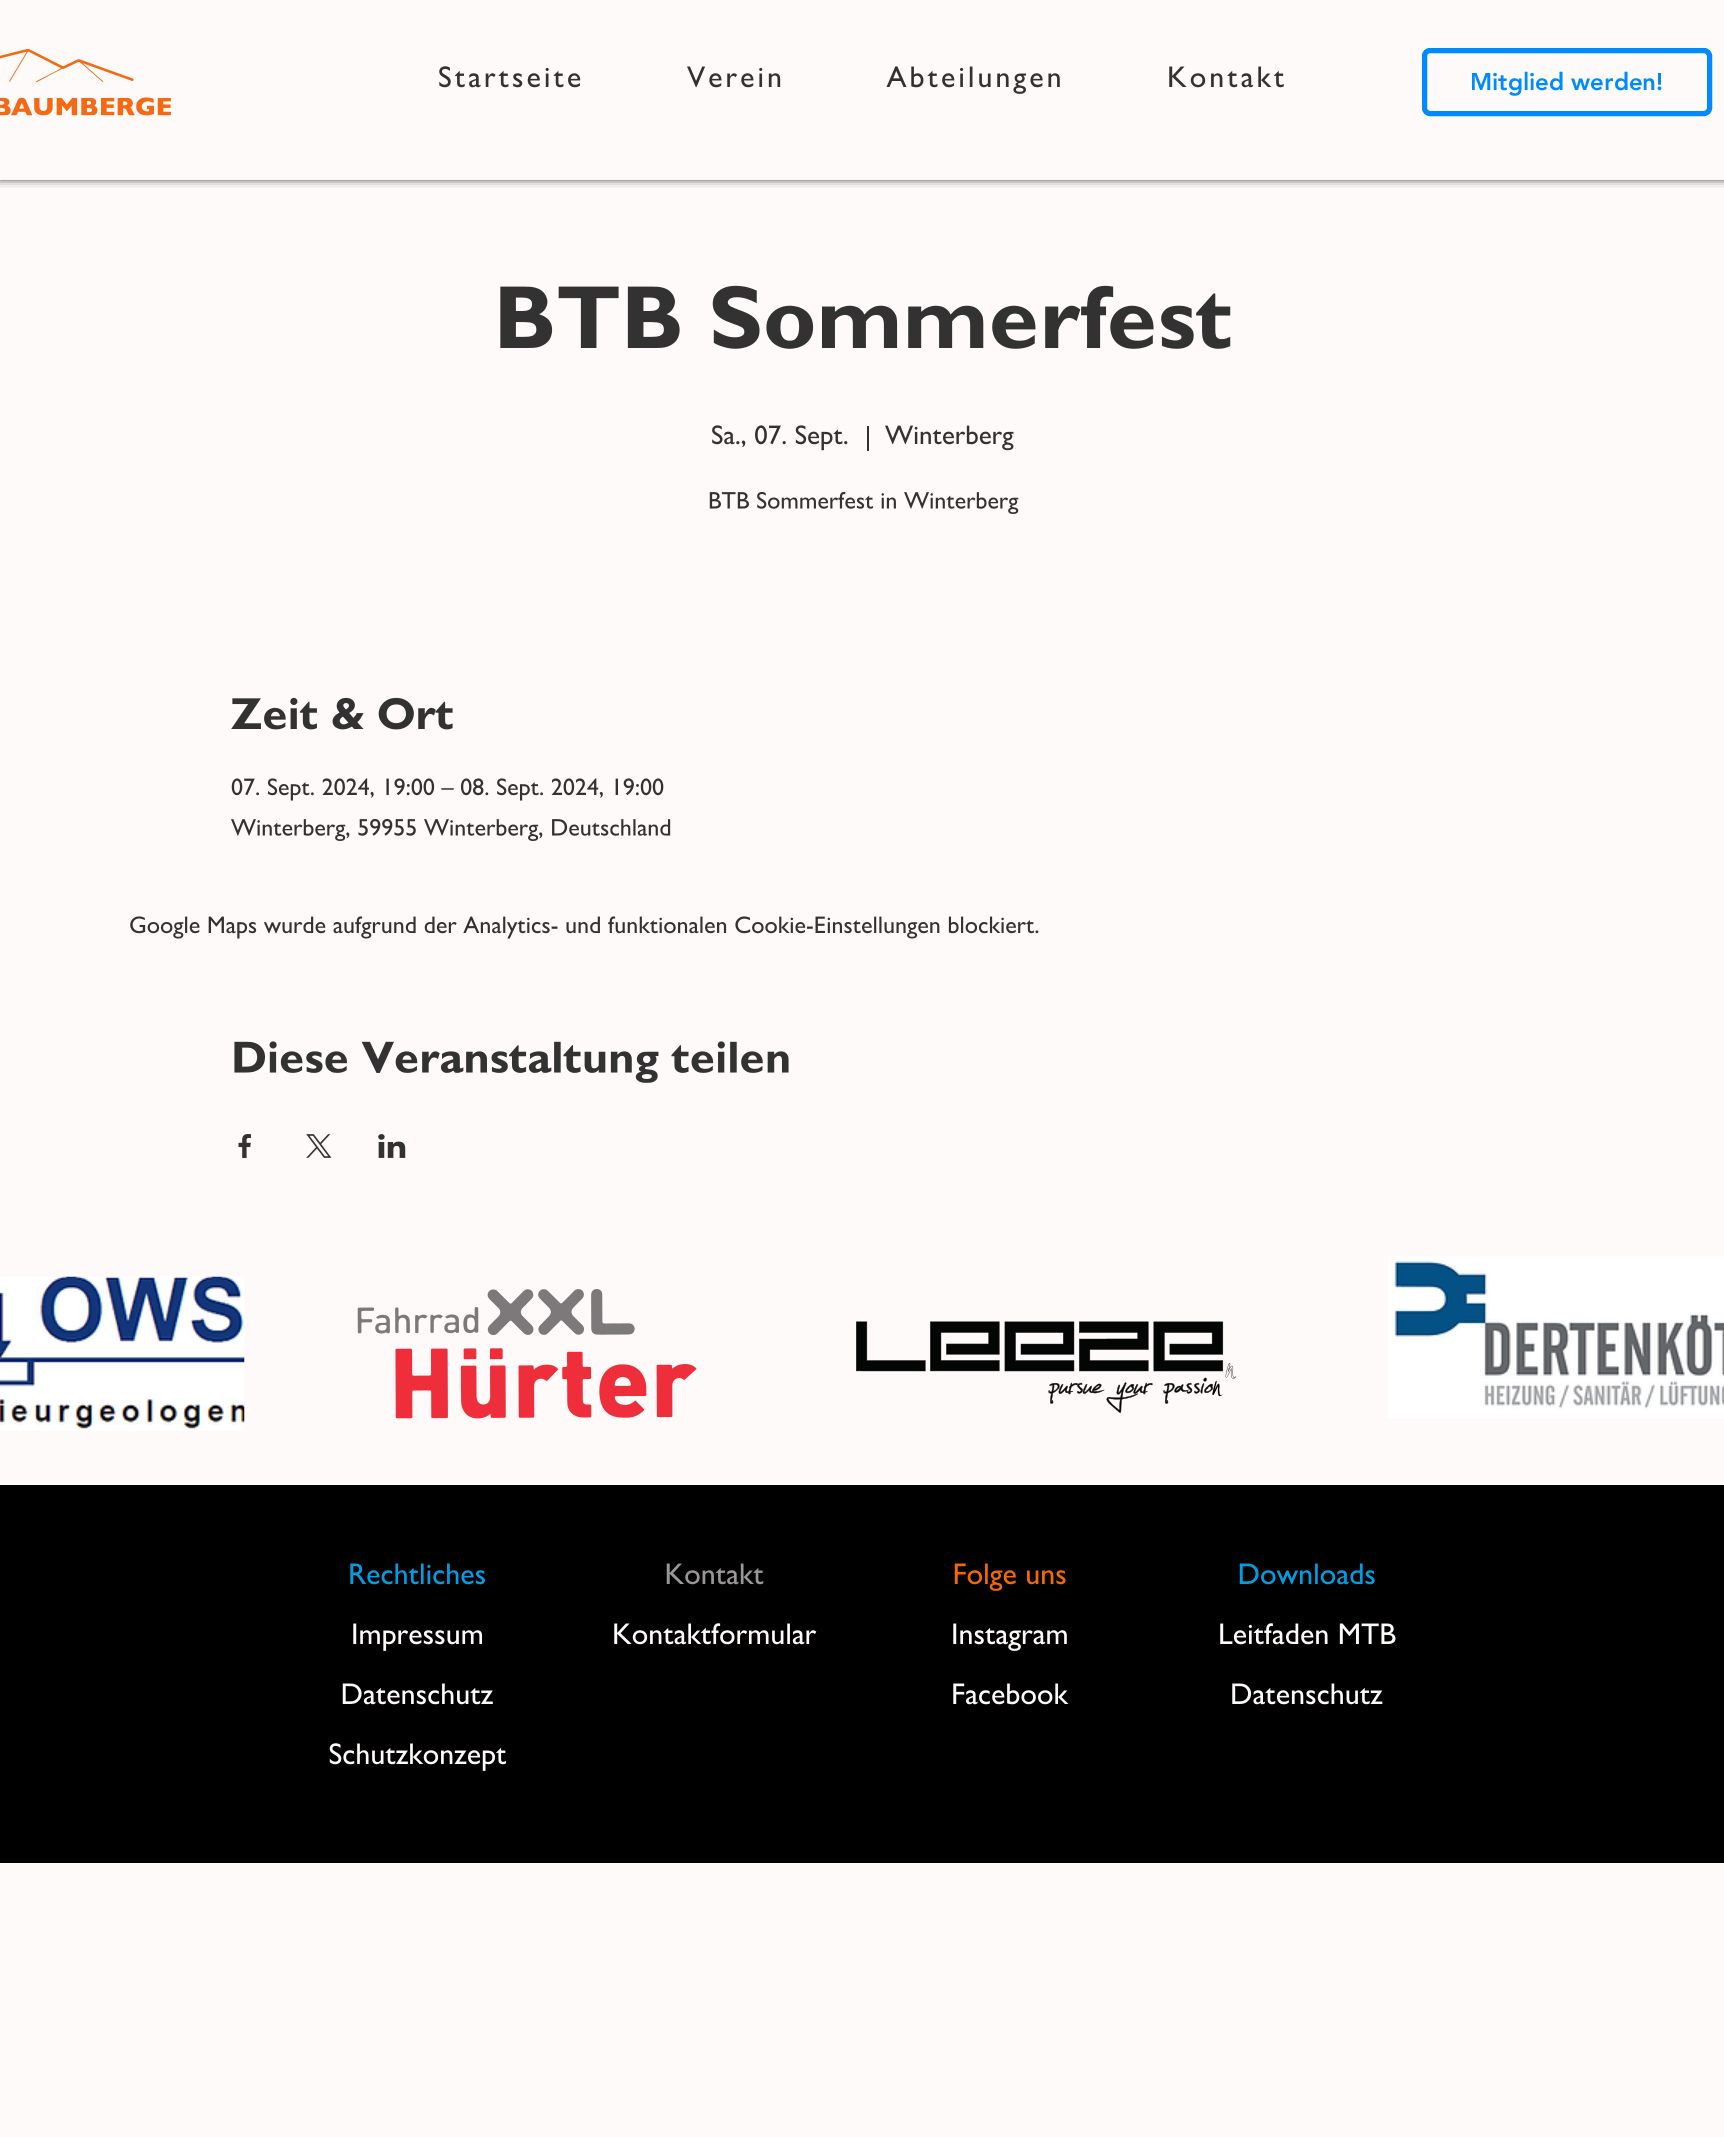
%!PS
<< /PageSize [1724 2137] /PageUsesTransparency true >> setpagedevice
/alpha { dup .setfillconstantalpha .setstrokeconstantalpha } def
/roundrect { 5 dict begin { /r /h /w /y /x } { exch def } forall
  x r add y moveto x w add y 2 copy h add r arct x w add y h add x 1 index r arct
  x y h add x y r arct x y 2 copy exch w add exch r arct closepath end } def
/shadow { 12 dict begin { /a /b /q /h /w /y /x } { exch def } forall gsave /was 0 def
  9 -2 -9 { dup b mul 4 div /e exch def 1 sub .425 mul 2.718 exch exp 1 add a .99 .min exch div /now exch def
    1 1 now sub 1 was sub div sub alpha /was now def
    w h .min e 2 mul add 0 gt { x e sub y e sub w e 2 mul add h e 2 mul add
      q e add b .6 mul add w h .min 2 div e add .min 0 .max roundrect fill } if } for grestore end } def
/picture { 5 dict begin { /h /w /y /x /name } { exch def } forall
  gsave x y translate w h scale
  w h 8 [w 0 0 h 0 0] name (r) file false 3 colorimage grestore end } def
0 .pushpdf14devicefilter
0 2137 translate 1 -1 scale
4 setmiterlimit
1 0.98 0.98 setrgbcolor
0 0 1724 2137 rectfill
gsave
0 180 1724 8 rectclip
0 setgray
0 0 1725 180 0 4 0.7 shadow
grestore
(img1.rgb) 0 48 171 68 picture
(img2.rgb) 439 66 142 22 picture
(img3.rgb) 687 66 94 22 picture
(img4.rgb) 886 66 174 28 picture
(img5.rgb) 1169 66 115 22 picture
0 0.541 0.988 setrgbcolor
5 setlinewidth
1424.5 50.5 285 63 5.5 roundrect stroke
/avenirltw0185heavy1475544-Black [24 0 0 -24 0 0] selectfont
1470 90 moveto (Mitglied werden!) show
(img6.rgb) 500 285 731 64 picture
(img7.rgb) 712 425 136 26 picture
0.2 0.196 0.196 setrgbcolor
867 426 2 25 rectfill
(img8.rgb) 885 425 129 26 picture
(img9.rgb) 709 491 310 23 picture
(img10.rgb) 231 697 222 33 picture
(img11.rgb) 231 778 433 23 picture
(img12.rgb) 231 818 440 23 picture
(img13.rgb) 130 916 909 23 picture
(img14.rgb) 234 1041 555 42 picture
(img15.rgb) 238 1134 13 24 picture
(img16.rgb) 306 1134 26 24 picture
(img17.rgb) 378 1134 28 24 picture
(img18.rgb) 0 1276 245 155 picture
(img19.rgb) 357 1289 340 130 picture
(img20.rgb) 856 1321 381 92 picture
(img21.rgb) 1388 1256 336 163 picture
0 setgray
0 1485 1724 378 rectfill
(img22.rgb) 350 1563 135 22 picture
(img23.rgb) 353 1623 129 28 picture
(img24.rgb) 342 1683 151 22 picture
(img25.rgb) 329 1743 178 28 picture
(img26.rgb) 666 1563 98 22 picture
(img27.rgb) 614 1623 203 22 picture
(img28.rgb) 954 1563 112 28 picture
(img29.rgb) 953 1623 114 28 picture
(img30.rgb) 953 1683 116 22 picture
(img31.rgb) 1239 1563 136 22 picture
(img32.rgb) 1220 1623 176 22 picture
(img33.rgb) 1232 1683 151 22 picture
.poppdf14devicefilter showpage
